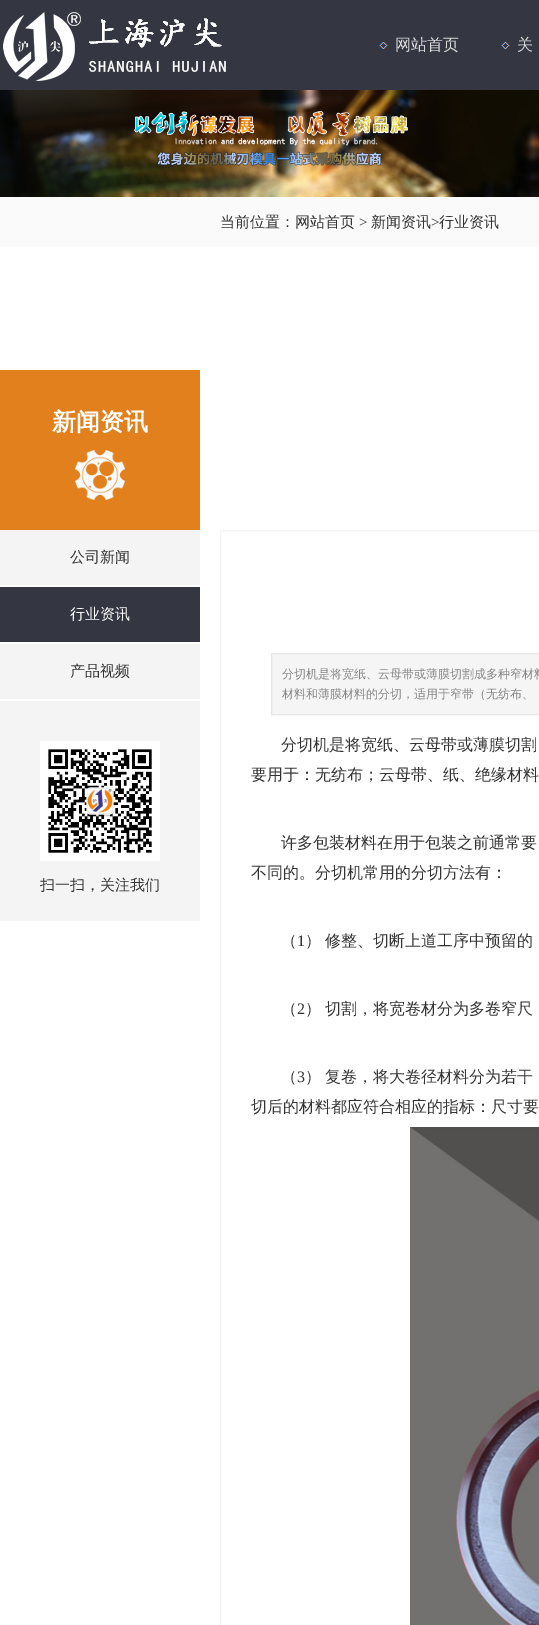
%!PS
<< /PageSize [539 1625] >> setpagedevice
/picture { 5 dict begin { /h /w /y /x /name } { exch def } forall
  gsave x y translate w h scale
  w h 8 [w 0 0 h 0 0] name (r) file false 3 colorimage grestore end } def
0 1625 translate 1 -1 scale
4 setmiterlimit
1 setgray
0 0 539 1625 rectfill
0.204 0.216 0.259 setrgbcolor
0 0 539 90 rectfill
(img1.rgb) 3 12 223 69 picture
(img2.rgb) 379 42 9 7 picture
/WenQuanYiZenHei-Medium [16 0 0 -16 0 0] selectfont
0.851 setgray
395 50 moveto (网站首页) show
(img2.rgb) 501 42 9 7 picture
517 50 moveto (关) show
(img3.rgb) 0 90 539 107 picture
0.98 setgray
0 197 539 50 rectfill
/WenQuanYiZenHei-Medium [15 0 0 -15 0 0] selectfont
0.2 setgray
220 227 moveto (当前位置：网站首页) show
/LiberationSerif-Regular [15 0 0 -15 0 0] selectfont
359 227 moveto (>) show
/WenQuanYiZenHei-Medium [15 0 0 -15 0 0] selectfont
371 227 moveto (新闻资讯) show
/LiberationSerif-Regular [15 0 0 -15 0 0] selectfont
431 227 moveto (>) show
/WenQuanYiZenHei-Medium [15 0 0 -15 0 0] selectfont
439 227 moveto (行业资讯) show
0.882 0.502 0.11 setrgbcolor
0 370 200 160 rectfill
/WenQuanYiZenHei-Bold [24 0 0 -24 0 0] selectfont
1 setgray
52 430 moveto (新闻资讯) show
(img4.rgb) 75 450 50 50 picture
0.957 setgray
0 530 200 55 rectfill
/WenQuanYiZenHei-Medium [15 0 0 -15 0 0] selectfont
0.2 setgray
70 562 moveto (公司新闻) show
0.204 0.216 0.259 setrgbcolor
0 587 200 55 rectfill
1 setgray
70 619 moveto (行业资讯) show
0.957 setgray
0 644 200 55 rectfill
0.2 setgray
70 676 moveto (产品视频) show
0.957 setgray
0 701 200 220 rectfill
(img5.rgb) 40 741 120 120 picture
0.2 setgray
40 890 moveto (扫一扫，关注我们) show
0.953 setgray
220.5 530.5 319 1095 rectstroke
0.961 setgray
newpath 271.5 653.5 moveto 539.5 653.5 lineto 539.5 714.5 lineto 271.5 714.5 lineto closepath gsave fill grestore
0.898 setgray
stroke
/WenQuanYiZenHei-Medium [12 0 0 -12 0 0] selectfont
0.525 setgray
282 678 moveto (分切机是将宽纸、云母带或薄膜切割成多种窄材料) show
282 698 moveto (材料和薄膜材料的分切，适用于窄带（无纺布、) show
/WenQuanYiZenHei-Medium [16 0 0 -16 0 0] selectfont
0.2 setgray
281 750 moveto (分切机是将宽纸、云母带或薄膜切割) show
251 780 moveto (要用于：无纺布；云母带、纸、绝缘材料) show
281 848 moveto (许多包装材料在用于包装之前通常要) show
251 878 moveto (不同的。分切机常用的分切方法有：) show
281 946 moveto (（) show
/LiberationSerif-Regular [16 0 0 -16 0 0] selectfont
297 946 moveto (1) show
/WenQuanYiZenHei-Medium [16 0 0 -16 0 0] selectfont
305 946 moveto -1 0 32 (） 修整、切断上道工序中预留的) widthshow
281 1014 moveto (（) show
/LiberationSerif-Regular [16 0 0 -16 0 0] selectfont
297 1014 moveto (2) show
/WenQuanYiZenHei-Medium [16 0 0 -16 0 0] selectfont
305 1014 moveto -1 0 32 (） 切割，将宽卷材分为多卷窄尺) widthshow
281 1082 moveto (（) show
/LiberationSerif-Regular [16 0 0 -16 0 0] selectfont
297 1082 moveto (3) show
/WenQuanYiZenHei-Medium [16 0 0 -16 0 0] selectfont
305 1082 moveto -1 0 32 (） 复卷，将大卷径材料分为若干) widthshow
251 1112 moveto (切后的材料都应符合相应的指标：尺寸要) show
(img6.rgb) 410 1127 129 498 picture
showpage
